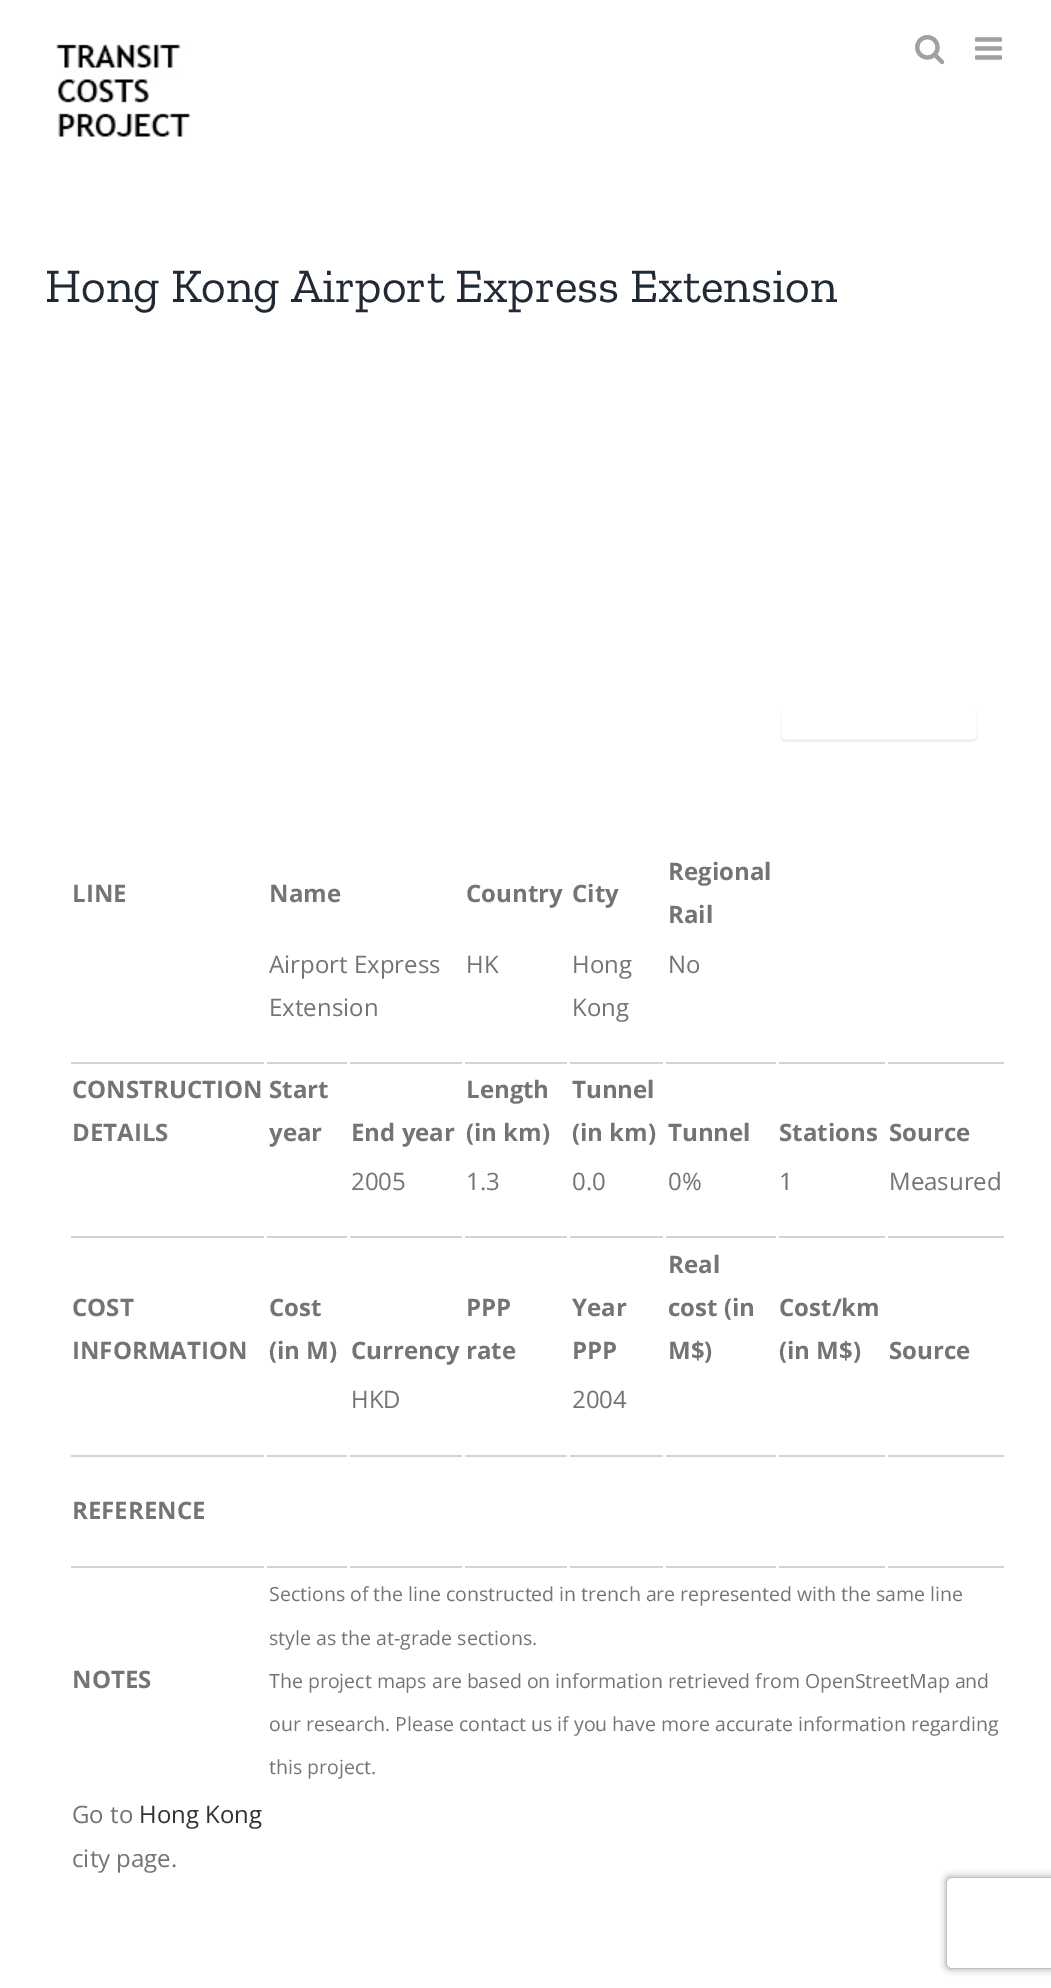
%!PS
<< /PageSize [1051 1988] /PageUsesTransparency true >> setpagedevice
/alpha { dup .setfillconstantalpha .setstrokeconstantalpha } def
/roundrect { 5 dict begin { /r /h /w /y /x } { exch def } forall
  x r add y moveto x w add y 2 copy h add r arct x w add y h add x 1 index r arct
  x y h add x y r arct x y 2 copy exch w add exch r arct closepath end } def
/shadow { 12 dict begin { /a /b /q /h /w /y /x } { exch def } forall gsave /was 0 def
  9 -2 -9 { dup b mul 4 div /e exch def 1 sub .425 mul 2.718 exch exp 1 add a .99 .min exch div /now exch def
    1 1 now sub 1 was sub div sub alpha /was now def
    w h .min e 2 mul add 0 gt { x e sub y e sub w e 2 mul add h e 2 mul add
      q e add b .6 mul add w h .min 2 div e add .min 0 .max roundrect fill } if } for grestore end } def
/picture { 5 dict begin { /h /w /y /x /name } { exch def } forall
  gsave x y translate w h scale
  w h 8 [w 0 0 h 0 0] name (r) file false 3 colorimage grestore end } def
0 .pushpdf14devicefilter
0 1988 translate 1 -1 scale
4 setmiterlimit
1 setgray
0 0 1051 1988 rectfill
(img1.rgb) 56 44 135 93 picture
(img2.rgb) 915 35 30 30 picture
(img3.rgb) 975 37 27 23 picture
/ZillaSlab-Regular [48 0 0 -48 0 0] selectfont
0.129 0.161 0.204 setrgbcolor
45 302 moveto (Hong Kong Airport Express Extension) show
(img4.rgb) 780 711 198 32 picture
/OpenSans-Bold [24 0 0 -24 0 0] selectfont
0.455 setgray
72 902 moveto (LINE) show
269 902 moveto (Name) show
466 902 moveto (Country) show
572 902 moveto (City) show
668 880 moveto (Regional) show
668 923 moveto (Rail) show
/OpenSans-Regular [24 0 0 -24 0 0] selectfont
269 973 moveto (Airport Express) show
269 1016 moveto (Extension) show
466 973 moveto (HK) show
572 973 moveto (Hong) show
572 1016 moveto (Kong) show
668 973 moveto (No) show
0.827 setgray
71 1062 193 2 rectfill
267 1062 80 2 rectfill
350 1062 112 2 rectfill
465 1062 102 2 rectfill
570 1062 93 2 rectfill
666 1062 110 2 rectfill
779 1062 106 2 rectfill
888 1062 116 2 rectfill
/OpenSans-Bold [24 0 0 -24 0 0] selectfont
0.455 setgray
72 1098 moveto (CONSTRUCTION Start) show
72 1141 moveto (DETAILS) show
351 1141 moveto (End year) show
466 1098 moveto (Length) show
466 1141 moveto (\(in km\)) show
572 1098 moveto (Tunnel) show
572 1141 moveto (\(in km\)) show
668 1141 moveto (Tunnel) show
779 1141 moveto (Stations) show
889 1141 moveto (Source) show
269 1141 moveto (year) show
/OpenSans-Regular [24 0 0 -24 0 0] selectfont
351 1190 moveto (2005) show
466 1190 moveto (1.3) show
572 1190 moveto (0.0) show
668 1190 moveto (0%) show
779 1190 moveto (1) show
889 1190 moveto (Measured) show
0.827 setgray
71 1236 193 2 rectfill
267 1236 80 2 rectfill
350 1236 112 2 rectfill
465 1236 102 2 rectfill
570 1236 93 2 rectfill
666 1236 110 2 rectfill
779 1236 106 2 rectfill
888 1236 116 2 rectfill
/OpenSans-Bold [24 0 0 -24 0 0] selectfont
0.455 setgray
72 1316 moveto (COST) show
72 1359 moveto (INFORMATION) show
269 1316 moveto (Cost) show
269 1359 moveto (\(in M\)) show
466 1316 moveto (PPP) show
572 1316 moveto (Year) show
572 1359 moveto (PPP) show
668 1273 moveto (Real) show
668 1316 moveto (cost \(in) show
668 1359 moveto (M$\)) show
779 1316 moveto (Cost/km) show
779 1359 moveto (\(in M$\)) show
351 1359 moveto (Currency rate) show
889 1359 moveto (Source) show
/OpenSans-Regular [24 0 0 -24 0 0] selectfont
351 1408 moveto (HKD) show
572 1408 moveto (2004) show
0.827 setgray
71 1455 193 2 rectfill
267 1455 80 2 rectfill
350 1455 112 2 rectfill
465 1455 102 2 rectfill
570 1455 93 2 rectfill
666 1455 110 2 rectfill
779 1455 106 2 rectfill
888 1455 116 2 rectfill
/OpenSans-Bold [24 0 0 -24 0 0] selectfont
0.455 setgray
72 1519 moveto (REFERENCE) show
0.827 setgray
71 1566 193 2 rectfill
267 1566 80 2 rectfill
350 1566 112 2 rectfill
465 1566 102 2 rectfill
570 1566 93 2 rectfill
666 1566 110 2 rectfill
779 1566 106 2 rectfill
888 1566 116 2 rectfill
0.455 setgray
72 1688 moveto (NOTES) show
/OpenSans-Regular [19.5 0 0 -19.5 0 0] selectfont
269 1601 moveto (Sections of the line constructed in trench are represented with the same line) show
269 1645 moveto (style as the at-grade sections.) show
269 1688 moveto (The project maps are based on information retrieved from OpenStreetMap and) show
269 1731 moveto (our research. Please contact us if you have more accurate information regarding) show
269 1774 moveto (this project.) show
/OpenSans-Regular [24 0 0 -24 0 0] selectfont
72 1823 moveto (Go to) show
0.2 setgray
139 1823 moveto (Hong Kong) show
0.455 setgray
72 1867 moveto (city page.) show
gsave
newpath 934 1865 moveto 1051 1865 lineto 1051 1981 lineto 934 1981 lineto closepath 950 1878 moveto 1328 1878 lineto 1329.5 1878 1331 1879.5 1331 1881 curveto 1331 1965 lineto 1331 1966.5 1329.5 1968 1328 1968 curveto 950 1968 lineto 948.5 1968 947 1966.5 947 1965 curveto 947 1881 lineto 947 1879.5 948.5 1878 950 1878 curveto closepath eoclip newpath
0.502 setgray
947 1878 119 90 3 4 1 shadow
grestore
.poppdf14devicefilter showpage
